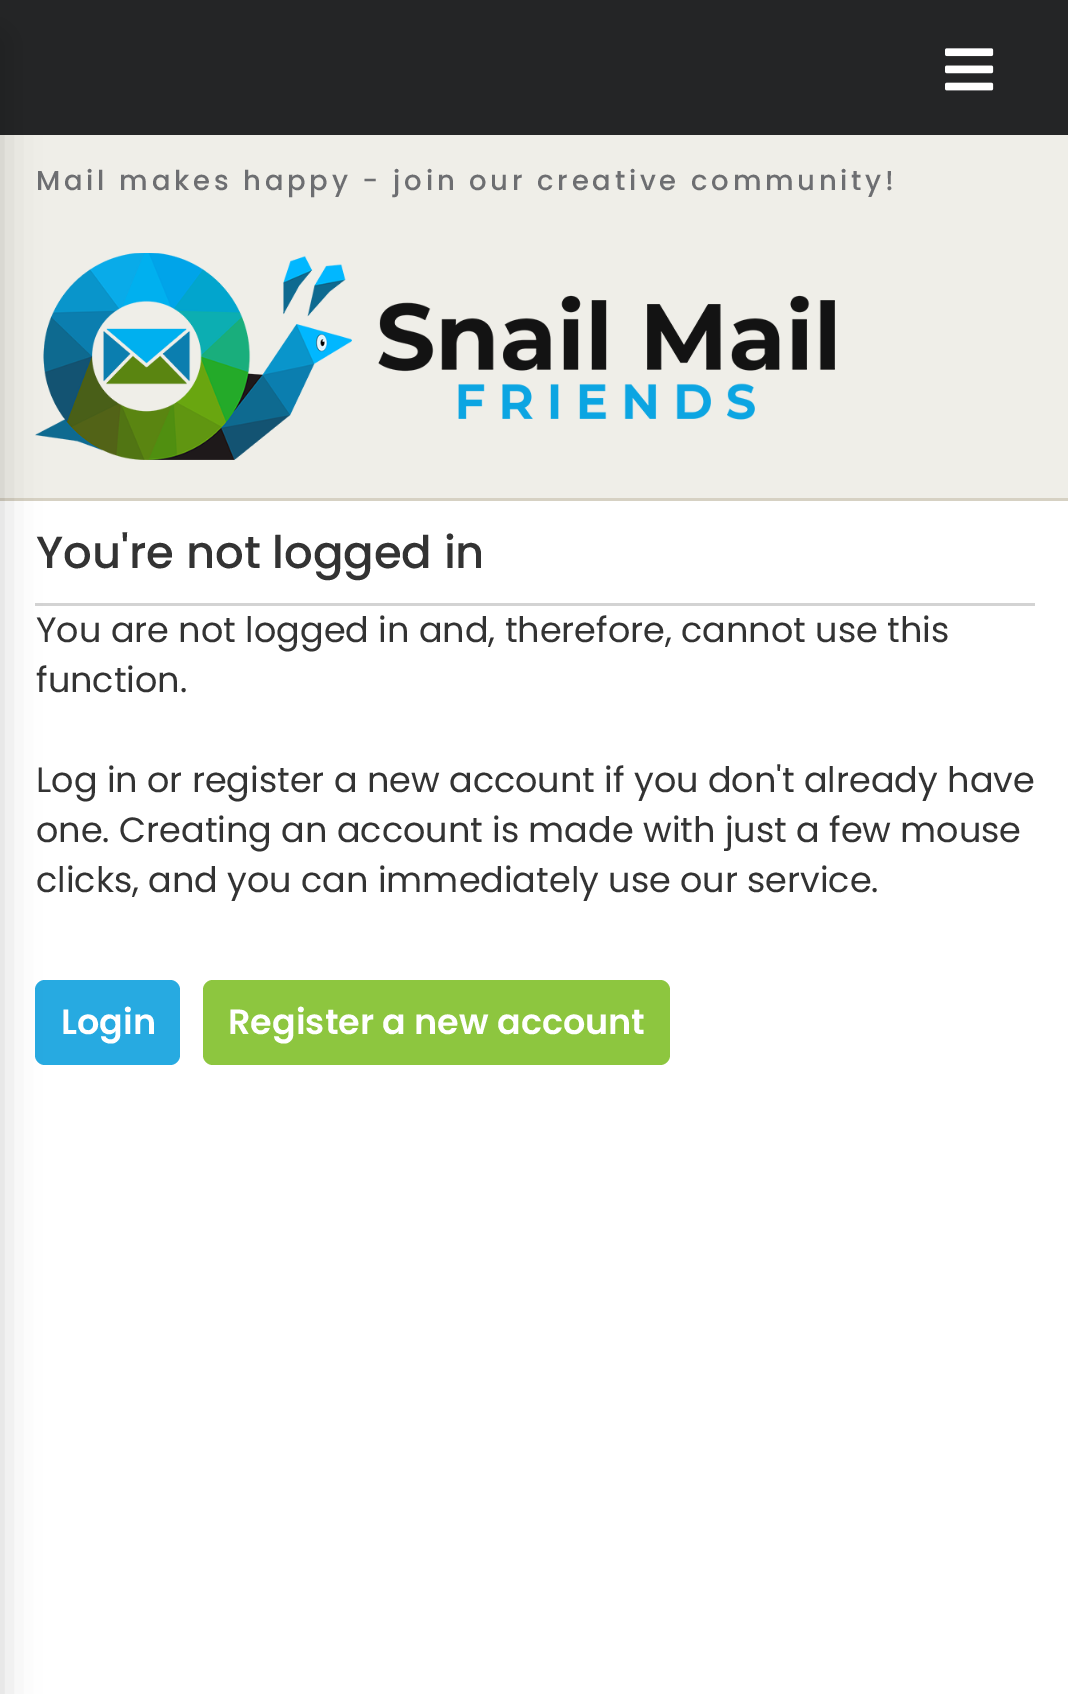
%!PS
<< /PageSize [1068 1694] /PageUsesTransparency true >> setpagedevice
/alpha { dup .setfillconstantalpha .setstrokeconstantalpha } def
/roundrect { 5 dict begin { /r /h /w /y /x } { exch def } forall
  x r add y moveto x w add y 2 copy h add r arct x w add y h add x 1 index r arct
  x y h add x y r arct x y 2 copy exch w add exch r arct closepath end } def
/shadow { 12 dict begin { /a /b /q /h /w /y /x } { exch def } forall gsave /was 0 def
  9 -2 -9 { dup b mul 4 div /e exch def 1 sub .425 mul 2.718 exch exp 1 add a .99 .min exch div /now exch def
    1 1 now sub 1 was sub div sub alpha /was now def
    w h .min e 2 mul add 0 gt { x e sub y e sub w e 2 mul add h e 2 mul add
      q e add b .6 mul add w h .min 2 div e add .min 0 .max roundrect fill } if } for grestore end } def
/picture { 5 dict begin { /h /w /y /x /name } { exch def } forall
  gsave x y translate w h scale
  w h 8 [w 0 0 h 0 0] name (r) file false 3 colorimage grestore end } def
0 .pushpdf14devicefilter
0 1694 translate 1 -1 scale
4 setmiterlimit
1 setgray
0 0 1068 1694 rectfill
0.141 0.145 0.149 setrgbcolor
0 0 1068 135 rectfill
0.937 0.933 0.91 setrgbcolor
0 135 1068 363 rectfill
0.839 0.82 0.765 setrgbcolor
0 498 1068 3 rectfill
(img2.rgb) 35 253 800 207 picture
0.827 setgray
35 603 1000 3 rectfill
0.153 0.667 0.882 setrgbcolor
35 980 145 85 10 roundrect fill
0 setgray
-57 38 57 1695 0 19 0.18 shadow
(img1.rgb) 945 48 49 43 picture
/Poppins-Medium [27.5 0 0 -27.5 0 0] selectfont
0.427 0.431 0.443 setrgbcolor
36 190 moveto 3.75 0 (Mail makes happy - join our creative community!) ashow
/Poppins-Medium [45 0 0 -45 0 0] selectfont
0.2 setgray
36 568 moveto (You're not logged in) show
/Poppins-Regular [35 0 0 -35 0 0] selectfont
36 642 moveto (You are not logged in and, therefore, cannot use this) show
36 692 moveto (function.) show
36 792 moveto (Log in or register a new account if you don't already have) show
36 842 moveto (one. Creating an account is made with just a few mouse) show
36 892 moveto (clicks, and you can immediately use our service.) show
/Poppins-SemiBold [35 0 0 -35 0 0] selectfont
1 setgray
61 1034 moveto (Login) show
0.553 0.776 0.247 setrgbcolor
203 980 467 85 10 roundrect fill
1 setgray
228 1034 moveto (Register a new account) show
.poppdf14devicefilter showpage
